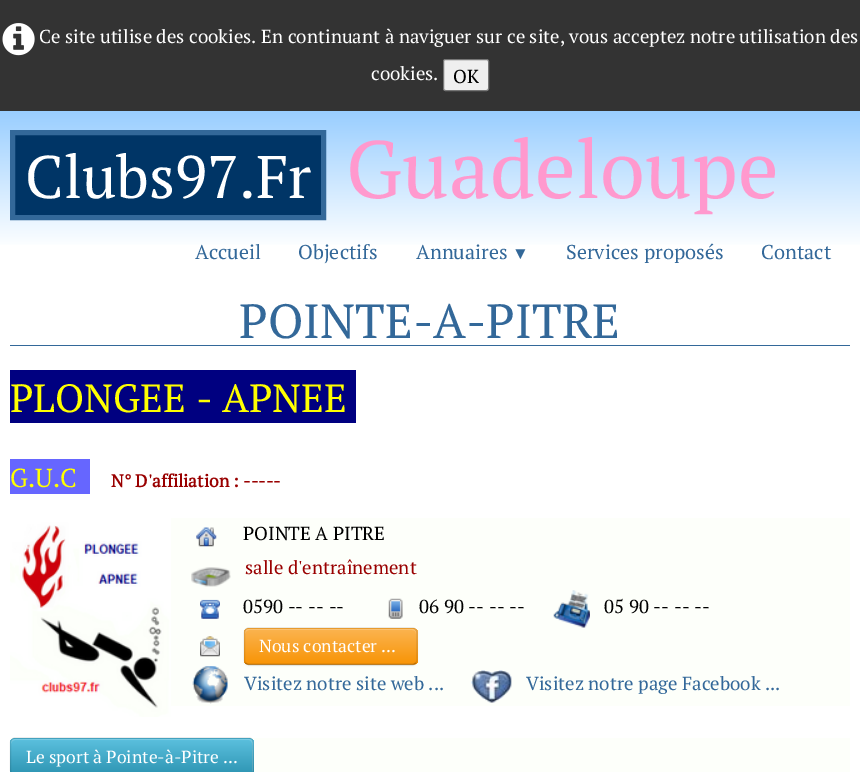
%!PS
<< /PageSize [860 772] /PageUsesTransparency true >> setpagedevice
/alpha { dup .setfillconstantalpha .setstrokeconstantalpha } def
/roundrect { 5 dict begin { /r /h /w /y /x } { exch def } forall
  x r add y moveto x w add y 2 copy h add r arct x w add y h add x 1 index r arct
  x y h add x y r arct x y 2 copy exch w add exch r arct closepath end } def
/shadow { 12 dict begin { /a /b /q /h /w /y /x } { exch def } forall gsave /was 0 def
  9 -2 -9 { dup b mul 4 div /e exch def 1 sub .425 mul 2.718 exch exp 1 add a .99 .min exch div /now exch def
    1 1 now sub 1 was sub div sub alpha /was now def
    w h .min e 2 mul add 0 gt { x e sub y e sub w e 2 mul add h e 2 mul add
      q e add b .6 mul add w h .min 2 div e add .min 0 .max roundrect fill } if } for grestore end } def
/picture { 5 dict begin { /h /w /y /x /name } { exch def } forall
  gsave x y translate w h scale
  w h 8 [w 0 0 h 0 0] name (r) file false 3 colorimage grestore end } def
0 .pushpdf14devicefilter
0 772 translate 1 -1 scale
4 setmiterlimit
1 setgray
0 0 860 772 rectfill
0.2 setgray
0 0 860 111 rectfill
(img1.rgb) 2 23 33 33 picture
/PTSerif-Regular [18.75 0 0 -18.75 0 0] selectfont
1 setgray
39 43 moveto (Ce site utilise des cookies. En continuant à naviguer sur ce site, vous acceptez notre utilisation des) show
371 80 moveto (cookies.) show
0.937 setgray
443.5 59.5 45 31 2 roundrect gsave fill grestore
0.463 setgray
stroke
0 setgray
453 83 moveto (OK) show
gsave newpath 0 111 moveto 860 111 lineto 860 245 lineto 0 245 lineto closepath clip newpath
<< /ShadingType 2 /ColorSpace /DeviceRGB /Coords [430 111 430 283] /Extend [true true] /Function << /FunctionType 3 /Domain [0 1] /Functions [<< /FunctionType 2 /Domain [0 1] /C0 [0.6 0.808 1] /C1 [1 1 1] /N 1 >> << /FunctionType 2 /Domain [0 1] /C0 [1 1 1] /C1 [1 1 1] /N 1 >>] /Bounds [0.8] /Encode [0 1 0 1] >> >> shfill grestore
0 0.208 0.4 setrgbcolor
newpath 12.5 132.5 moveto 323.5 132.5 lineto 323.5 217.5 lineto 12.5 217.5 lineto closepath gsave fill grestore
0.2 0.408 0.6 setrgbcolor
5 setlinewidth
stroke
/PTSerif-Regular [60 0 0 -60 0 0] selectfont
1 setgray
25 198 moveto (Clubs97.Fr) show
/PTSerif-Regular [81.25 0 0 -81.25 0 0] selectfont
1 0.6 0.808 setrgbcolor
346 198 moveto (Guadeloupe) show
/PTSerif-Regular [20 0 0 -20 0 0] selectfont
0.2 0.408 0.6 setrgbcolor
195 259 moveto (Accueil) show
298 259 moveto (Objectifs) show
416 259 moveto (Annuaires) show
/LiberationSerif-Regular [17 0 0 -17 0 0] selectfont
512 259 moveto (▼) show
/PTSerif-Regular [20 0 0 -20 0 0] selectfont
566 259 moveto (Services proposés) show
761 259 moveto (Contact) show
10 345 840 1 rectfill
/PTSerif-Regular [48 0 0 -48 0 0] selectfont
239 338 moveto (POINTE-A-PITRE) show
0 0 0.502 setrgbcolor
10 370 346 53 rectfill
/PTSerif-Regular [39.4 0 0 -39.4 0 0] selectfont
1 1 0 setrgbcolor
10 412 moveto (PLONGEE - APNEE) show
0.4 0.4 1 setrgbcolor
10 459 80 35 rectfill
/PTSerif-Regular [26 0 0 -26 0 0] selectfont
1 1 0 setrgbcolor
10 487 moveto (G.U.C) show
/PTSerif-Bold [17.5 0 0 -17.5 0 0] selectfont
0.6 0 0 setrgbcolor
111 487 moveto (N° D'affiliation : -----) show
(img2.rgb) 10 518 161 199 picture
0.992 1 0.98 setrgbcolor
171 518 679 188 rectfill
(img3.rgb) 196 527 21 20 picture
/PTSerif-Regular [18.75 0 0 -18.75 0 0] selectfont
0 setgray
243 540 moveto (POINTE A PITRE) show
(img4.rgb) 191 567 40 20 picture
0.6 0 0 setrgbcolor
245 574 moveto (salle d'entraînement) show
(img5.rgb) 200 599 20 20 picture
0 setgray
243 613 moveto (0590 -- -- --) show
(img6.rgb) 388 598 15 21 picture
419 613 moveto (06 90 -- -- --) show
(img7.rgb) 553 590 37 38 picture
604 613 moveto (05 90 -- -- --) show
(img8.rgb) 200 636 20 21 picture
244 629 174 37 5 1 0.05 shadow
0.98 0.655 0.196 setrgbcolor
244 628 174 37 5 roundrect fill
gsave
244 628 174 37 5 roundrect clip newpath
gsave newpath 244 629 moveto 418 629 lineto 418 664 lineto 244 664 lineto closepath clip newpath
<< /ShadingType 2 /ColorSpace /DeviceRGB /Coords [331 629 331 664] /Extend [true true] /Function << /FunctionType 2 /Domain [0 1] /C0 [0.984 0.706 0.314] /C1 [0.973 0.58 0.024] /N 1 >> >> shfill grestore
grestore
0.2 alpha
1 setgray
newpath 249 630 moveto 412 630 lineto 415 630 416 632 416 634 curveto 416 633 lineto 416 631 414 629 412 629 curveto 249 629 lineto 247 629 245 631 245 633 curveto 245 634 lineto 245 632 247 630 249 630 curveto closepath fill
0.25 alpha
0 setgray
1.2 setlinewidth
newpath 415.5 663 moveto 415 664 413.5 664.5 412.5 664.5 curveto 249 664.5 lineto 247.5 664.5 246.5 664 245.5 663 curveto stroke
0.1 alpha
newpath 245.5 663 moveto 245 662.5 244.5 661 244.5 660 curveto 244.5 632.5 lineto 244.5 631.5 245 630 245.5 629.5 curveto 246.5 628.5 247.5 628 249 628 curveto 412.5 628 lineto 413.5 628 415 628.5 415.5 629.5 curveto 416.5 630 417 631.5 417 632.5 curveto 417 660 lineto 417 661 416.5 662.5 415.5 663 curveto stroke
/PTSerif-Regular [17.5 0 0 -17.5 0 0] selectfont
1 alpha
1 setgray
259 652 moveto (Nous contacter ...) show
(img9.rgb) 192 666 36 38 picture
/PTSerif-Regular [18.75 0 0 -18.75 0 0] selectfont
0.2 0.408 0.6 setrgbcolor
244 690 moveto (Visitez notre site web ...) show
(img10.rgb) 471 670 41 33 picture
526 690 moveto (Visitez notre page Facebook ...) show
0.992 1 0.98 setrgbcolor
10 738 840 34 rectfill
0.286 0.686 0.804 setrgbcolor
10 738 244 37 5 roundrect fill
gsave
10 738 244 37 5 roundrect clip newpath
gsave newpath 10 739 moveto 254 739 lineto 254 772 lineto 10 772 lineto closepath clip newpath
<< /ShadingType 2 /ColorSpace /DeviceRGB /Coords [132 739 132 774] /Extend [true true] /Function << /FunctionType 2 /Domain [0 1] /C0 [0.357 0.753 0.871] /C1 [0.184 0.588 0.706] /N 1 >> >> shfill grestore
grestore
0.2 alpha
1 setgray
newpath 15 740 moveto 249 740 lineto 254 740 252 751 252 753 curveto 252 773 lineto 252 772 253 771 253 770 curveto 253 743 lineto 253 741 251 739 249 739 curveto 15 739 lineto 13 739 11 741 11 743 curveto 11 744 lineto 11 742 13 740 15 740 curveto closepath fill
0.1 alpha
0 setgray
newpath 12 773 moveto 11 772.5 10.5 771 10.5 770 curveto 10.5 742.5 lineto 10.5 741.5 11 740 12 739.5 curveto 12.5 738.5 14 738 15 738 curveto 249 738 lineto 250 738 251 738.5 252 739.5 curveto 252.5 740 253 741.5 253 742.5 curveto 253 770 lineto 253 771 252.5 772.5 252 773 curveto stroke
/PTSerif-Regular [17.5 0 0 -17.5 0 0] selectfont
1 alpha
1 setgray
26 763 moveto (Le sport à Pointe-à-Pitre ...) show
.poppdf14devicefilter showpage
